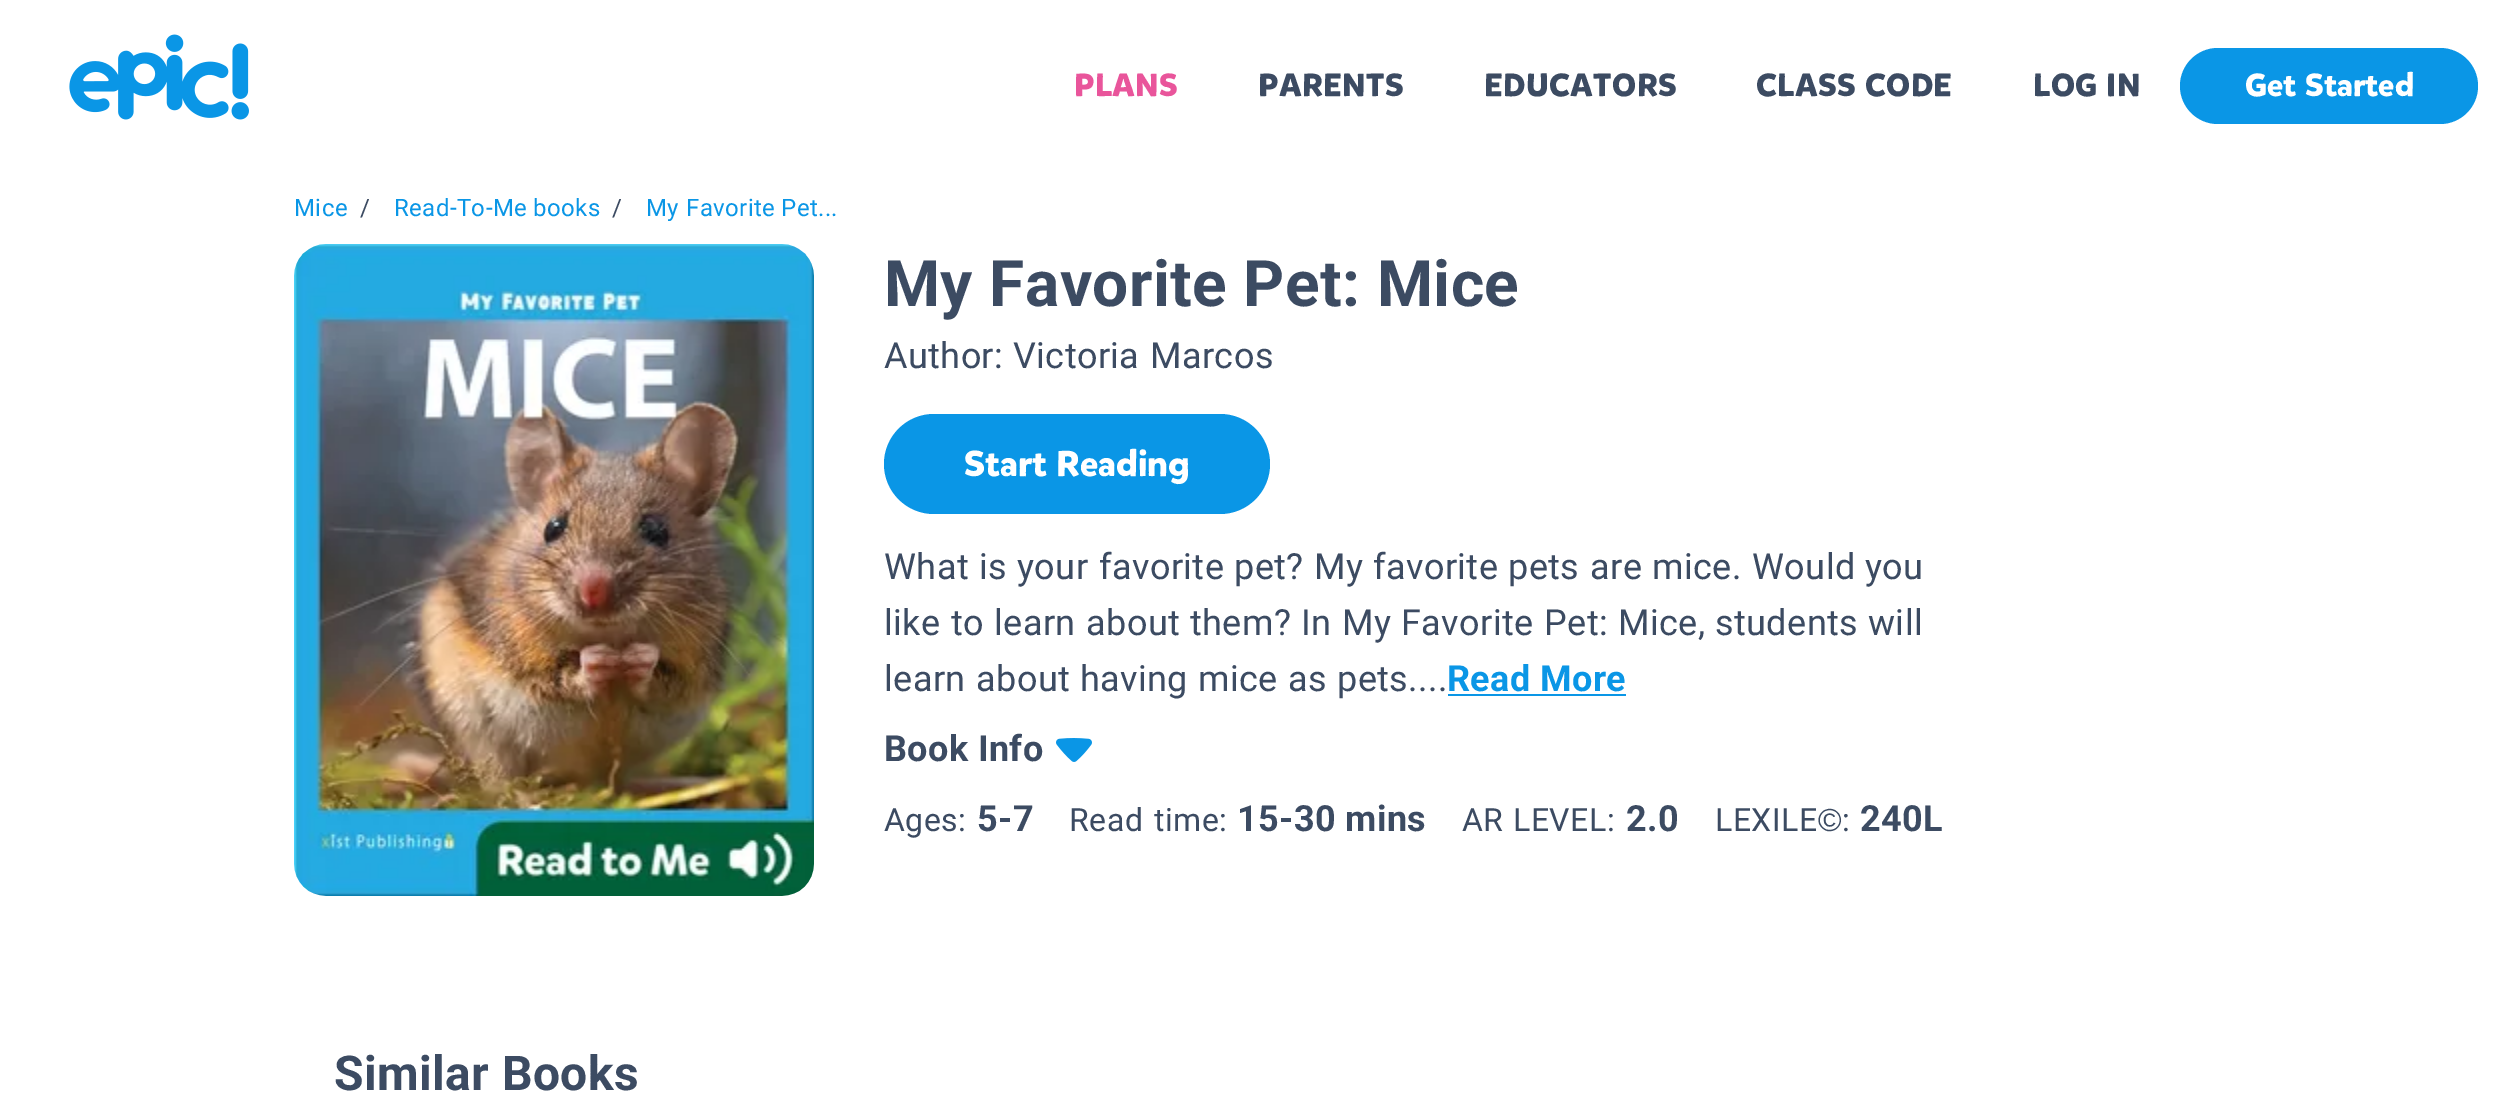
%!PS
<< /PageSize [2509 1103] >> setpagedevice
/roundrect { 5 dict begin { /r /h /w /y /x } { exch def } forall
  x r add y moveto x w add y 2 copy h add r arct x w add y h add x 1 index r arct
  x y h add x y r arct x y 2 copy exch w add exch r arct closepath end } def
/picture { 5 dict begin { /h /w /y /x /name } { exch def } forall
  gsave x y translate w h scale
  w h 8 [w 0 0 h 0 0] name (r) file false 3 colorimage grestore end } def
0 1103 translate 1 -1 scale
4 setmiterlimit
1 setgray
0 0 2509 1103 rectfill
(img1.rgb) 69 34 180 86 picture
/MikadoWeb-Bold [32 0 0 -32 0 0] selectfont
0.914 0.333 0.608 setrgbcolor
1074 96 moveto 0.4 0 (PLANS) ashow
0.235 0.294 0.384 setrgbcolor
1258 96 moveto 0.4 0 (PARENTS) ashow
1484 96 moveto 0.4 0 (EDUCATORS) ashow
1756 96 moveto 0.4 0 (CLASS) ashow
1865 96 moveto 0.4 0 (CODE) ashow
2033 96 moveto 0.4 0 (LOG) ashow
2106 96 moveto 0.4 0 (IN) ashow
0.039 0.588 0.902 setrgbcolor
2180 48 298 76 38 roundrect fill
1 setgray
2245 96 moveto (Get) show
2305 96 moveto (Started) show
/Roboto-Regular [24 0 0 -24 0 0] selectfont
0.039 0.588 0.902 setrgbcolor
294 216 moveto 0.4 0 (Mice) ashow
0.235 0.294 0.384 setrgbcolor
360 216 moveto 0.4 0 (/) ashow
0.039 0.588 0.902 setrgbcolor
394 216 moveto 0.4 0 (Read-To-Me) ashow
533 216 moveto 0.4 0 (books) ashow
0.235 0.294 0.384 setrgbcolor
612 216 moveto 0.4 0 (/) ashow
0.039 0.588 0.902 setrgbcolor
646 216 moveto 0.4 0 (My) ashow
686 216 moveto 0.4 0 (Favorite) ashow
781 216 moveto 0.4 0 (Pet...) ashow
(img2.rgb) 294 244 520 652 picture
/Roboto-Bold [64 0 0 -64 0 0] selectfont
0.235 0.294 0.384 setrgbcolor
884 306 moveto 0.4 0 (My Favorite Pet: Mice) ashow
/Roboto-Regular [36 0 0 -36 0 0] selectfont
884 368 moveto 0.4 0 (Author:) ashow
1013 368 moveto 0.4 0 (Victoria) ashow
1150 368 moveto 0.4 0 (Marcos) ashow
0.039 0.588 0.902 setrgbcolor
884 414 386 100 50 roundrect fill
/MikadoWeb-Bold [36 0 0 -36 0 0] selectfont
1 setgray
964 476 moveto (Start) show
1056 476 moveto (Reading) show
/Roboto-Regular [36 0 0 -36 0 0] selectfont
0.235 0.294 0.384 setrgbcolor
884 579 moveto 0.4 0 (What) ashow
979 579 moveto 0.4 0 (is) ashow
1017 579 moveto 0.4 0 (your) ashow
1099 579 moveto 0.4 0 (favorite) ashow
1234 579 moveto 0.4 0 (pet?) ashow
1314 579 moveto 0.4 0 (My) ashow
1373 579 moveto 0.4 0 (favorite) ashow
1508 579 moveto 0.4 0 (pets) ashow
1590 579 moveto 0.4 0 (are) ashow
1652 579 moveto 0.4 0 (mice.) ashow
1752 579 moveto 0.4 0 (Would) ashow
1865 579 moveto 0.4 0 (you) ashow
884 635 moveto 0.4 0 (like) ashow
951 635 moveto 0.4 0 (to) ashow
994 635 moveto 0.4 0 (learn) ashow
1086 635 moveto 0.4 0 (about) ashow
1190 635 moveto 0.4 0 (them?) ashow
1301 635 moveto 0.4 0 (In) ashow
1342 635 moveto 0.4 0 (My) ashow
1401 635 moveto 0.4 0 (Favorite) ashow
1544 635 moveto 0.4 0 (Pet:) ashow
1618 635 moveto 0.4 0 (Mice,) ashow
1715 635 moveto 0.4 0 (students) ashow
1868 635 moveto 0.4 0 (will) ashow
884 691 moveto 0.4 0 (learn) ashow
976 691 moveto 0.4 0 (about) ashow
1080 691 moveto 0.4 0 (having) ashow
1198 691 moveto 0.4 0 (mice) ashow
1288 691 moveto 0.4 0 (as) ashow
1337 691 moveto 0.4 0 (pets....) ashow
/Roboto-Bold [36 0 0 -36 0 0] selectfont
0.039 0.588 0.902 setrgbcolor
1447 691 moveto 0.4 0 (Read More) ashow
1448 694 178 2 rectfill
0.235 0.294 0.384 setrgbcolor
884 761 moveto 0.4 0 (Book Info) ashow
(img3.rgb) 1056 738 36 24 picture
/Roboto-Regular [32 0 0 -32 0 0] selectfont
884 831 moveto 0.5 0 (Ages:) ashow
/Roboto-Bold [36 0 0 -36 0 0] selectfont
977 831 moveto 0.4 0 (5-7) ashow
/Roboto-Regular [32 0 0 -32 0 0] selectfont
1069 831 moveto 0.5 0 (Read) ashow
1154 831 moveto 0.5 0 (time:) ashow
/Roboto-Bold [36 0 0 -36 0 0] selectfont
1237 831 moveto 0.4 0 (15-30 mins) ashow
/Roboto-Regular [32 0 0 -32 0 0] selectfont
1462 831 moveto 0.5 0 (AR) ashow
1513 831 moveto 0.5 0 (LEVEL:) ashow
/Roboto-Bold [36 0 0 -36 0 0] selectfont
1626 831 moveto 0.4 0 (2.0) ashow
/Roboto-Regular [32 0 0 -32 0 0] selectfont
1715 831 moveto 0.5 0 (LEXILE) ashow
/LiberationSans-Regular [32 0 0 -32 0 0] selectfont
1818 831 moveto 0.5 0 (©) ashow
/Roboto-Regular [32 0 0 -32 0 0] selectfont
1842 831 moveto 0.5 0 (:) ashow
/Roboto-Bold [36 0 0 -36 0 0] selectfont
1860 831 moveto 0.4 0 (240L) ashow
/Roboto-Bold [48 0 0 -48 0 0] selectfont
334 1090 moveto 0.4 0 (Similar Books) ashow
showpage
